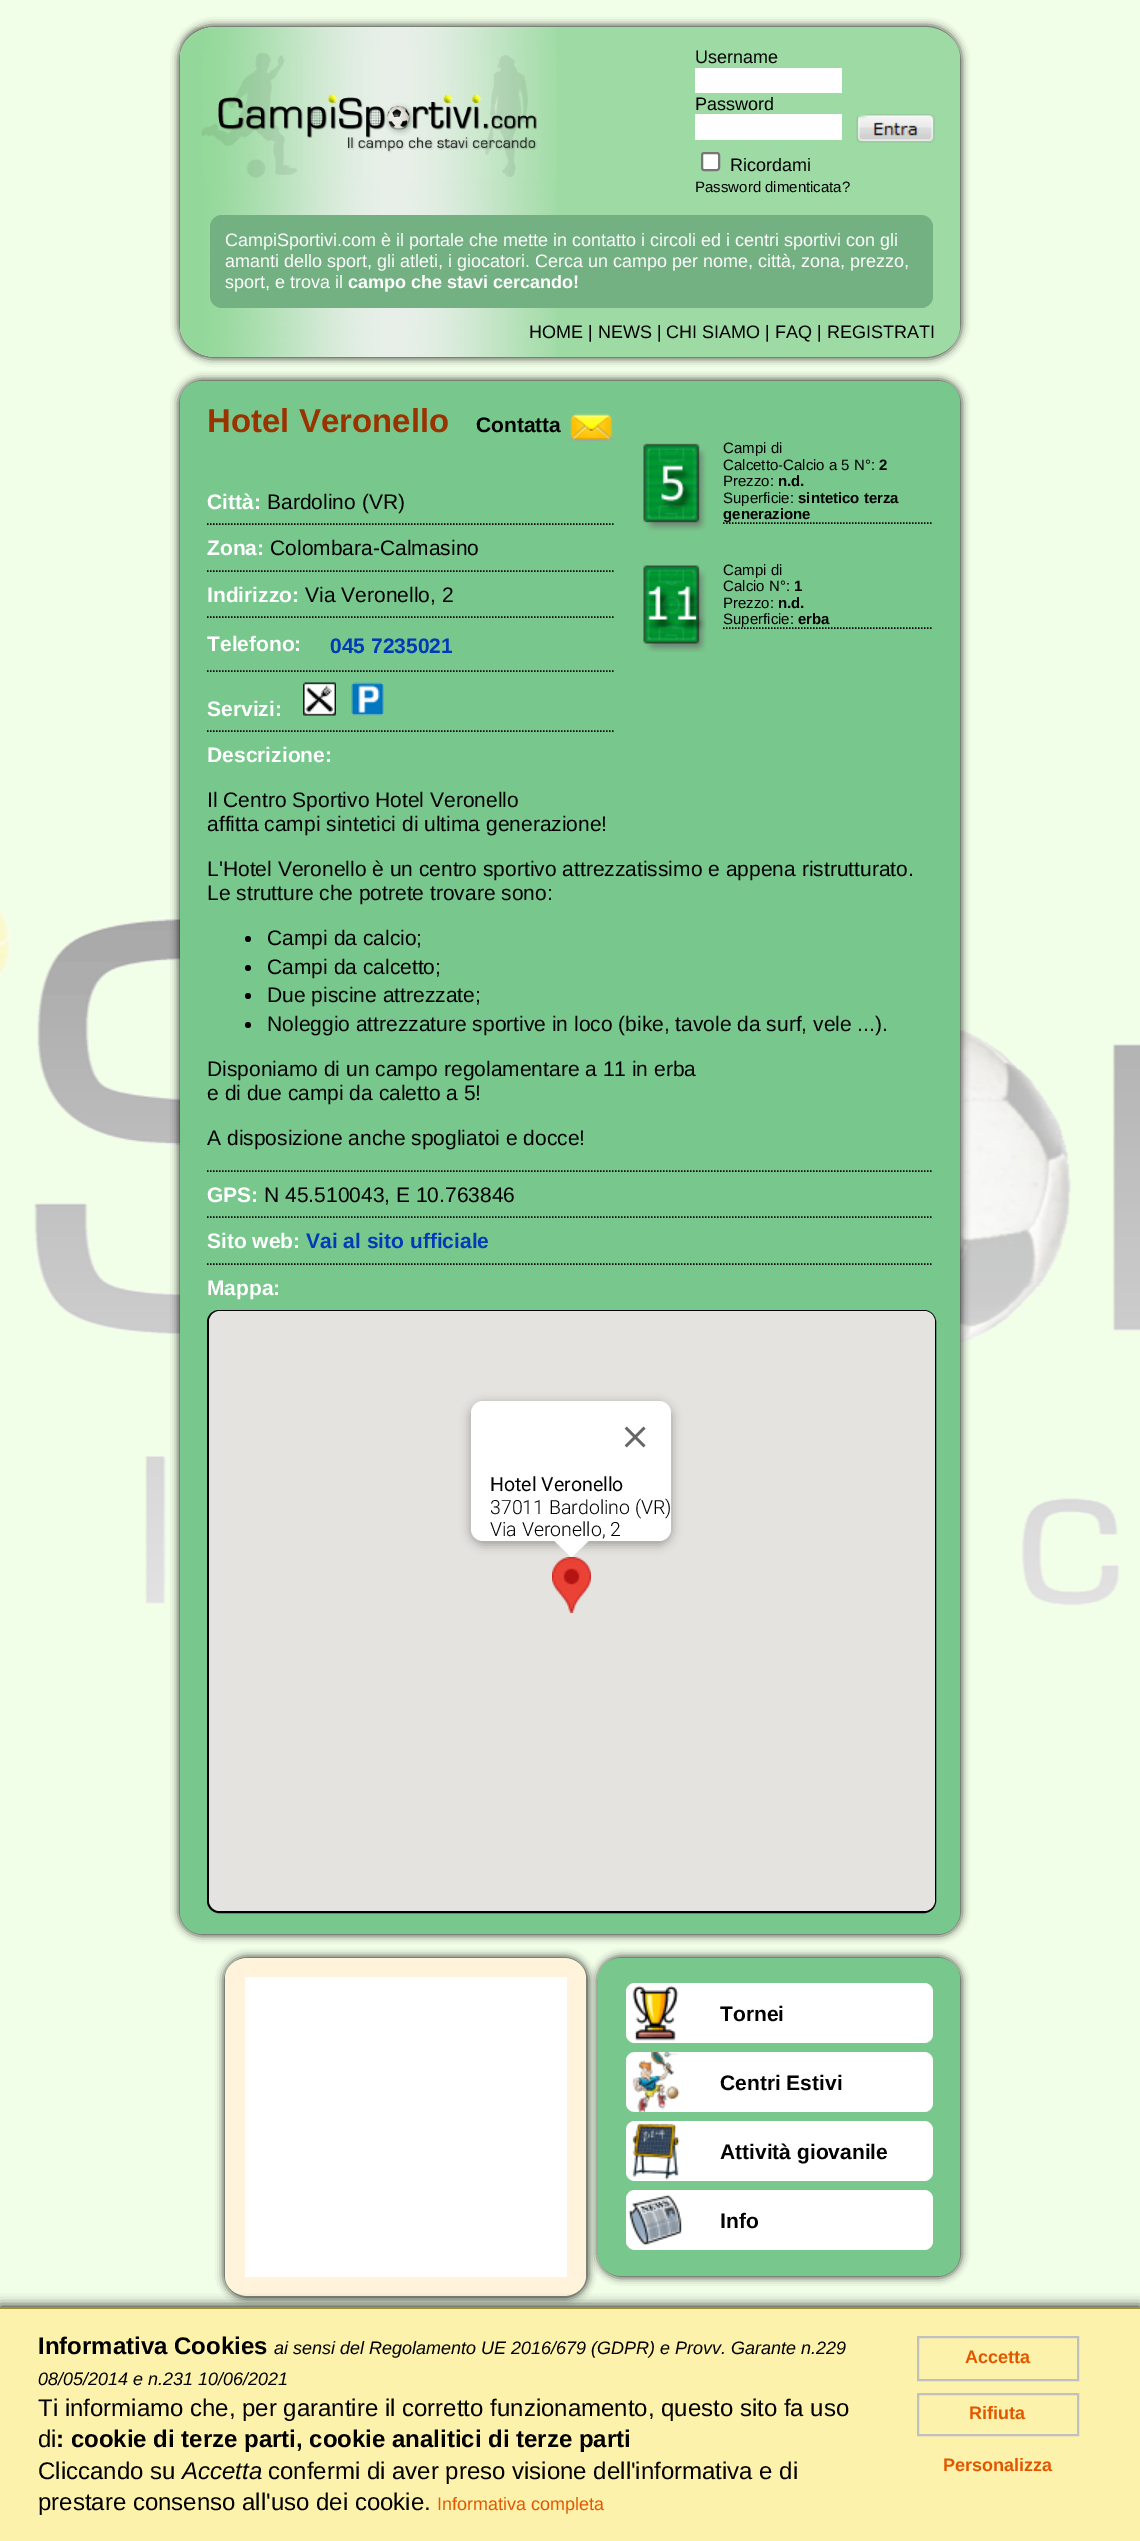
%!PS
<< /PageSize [1140 2541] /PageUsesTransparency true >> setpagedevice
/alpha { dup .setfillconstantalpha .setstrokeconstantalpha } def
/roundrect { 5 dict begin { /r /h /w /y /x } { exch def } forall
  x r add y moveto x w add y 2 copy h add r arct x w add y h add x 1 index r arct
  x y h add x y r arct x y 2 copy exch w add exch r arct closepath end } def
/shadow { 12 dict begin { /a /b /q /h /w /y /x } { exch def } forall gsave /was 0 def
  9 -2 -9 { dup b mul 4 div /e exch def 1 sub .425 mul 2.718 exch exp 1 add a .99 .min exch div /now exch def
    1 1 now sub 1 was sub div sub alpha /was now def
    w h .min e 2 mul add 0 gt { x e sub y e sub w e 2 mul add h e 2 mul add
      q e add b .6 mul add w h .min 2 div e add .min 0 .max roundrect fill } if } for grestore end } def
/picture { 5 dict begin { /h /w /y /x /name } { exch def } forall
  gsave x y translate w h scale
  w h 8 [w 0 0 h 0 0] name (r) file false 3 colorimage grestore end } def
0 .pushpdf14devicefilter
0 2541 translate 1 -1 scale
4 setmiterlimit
0.949 1 0.91 setrgbcolor
0 0 1140 2541 rectfill
(img1.rgb) 0 909 1140 697 picture
0 setgray
180 27 780 330 32 4.5 1 shadow
0.62 0.855 0.643 setrgbcolor
newpath 216 27 moveto 924 27 lineto 944 27 960 41 960 58 curveto 960 326 lineto 960 343 944 357 924 357 curveto 216 357 lineto 196 357 180 343 180 326 curveto 180 58 lineto 180 41 196 27 216 27 curveto closepath fill
(img2.rgb) 180 27 376 330 picture
/LiberationSans-Regular [18 0 0 -18 0 0] selectfont
0 setgray
695 63 moveto (Username) show
1 setgray
695 68 147 25 rectfill
0 setgray
695 110 moveto (Password) show
1 setgray
695 114 147 26 rectfill
(img3.rgb) 856 114 79 29 picture
702 153 17 17 2 roundrect gsave fill grestore
0.463 setgray
2 setlinewidth
stroke
0 setgray
730 171 moveto (Ricordami) show
/LiberationSans-Regular [15 0 0 -15 0 0] selectfont
695 192 moveto (Password dimenticata?) show
0.451 0.69 0.51 setrgbcolor
210 215 723 93 12 roundrect fill
/LiberationSans-Regular [18 0 0 -18 0 0] selectfont
1 setgray
225 246 moveto (CampiSportivi.com è il portale che mette in contatto i circoli ed i centri sportivi con gli) show
225 267 moveto (amanti dello sport, gli atleti, i giocatori. Cerca un campo per nome, città, zona, prezzo,) show
225 288 moveto (sport, e trova il) show
/LiberationSans-Bold [18 0 0 -18 0 0] selectfont
348 288 moveto (campo che stavi cercando!) show
/LiberationSans-Regular [18 0 0 -18 0 0] selectfont
0 setgray
529 338 moveto (HOME | NEWS | CHI SIAMO | FAQ | REGISTRATI) show
(img4.rgb) 201 52 356 128 picture
180 381 780 1553 21 4.5 1 shadow
0.471 0.784 0.553 setrgbcolor
newpath 202 381 moveto 938 381 lineto 950 381 960 390 960 402 curveto 960 1912 lineto 960 1924 950 1934 938 1934 curveto 202 1934 lineto 190 1934 180 1924 180 1912 curveto 180 402 lineto 180 390 190 381 202 381 curveto closepath fill
/LiberationSans-Bold [33 0 0 -33 0 0] selectfont
0.6 0.2 0 setrgbcolor
207 432 moveto (Hotel Veronello) show
/LiberationSans-Bold [21 0 0 -21 0 0] selectfont
0 setgray
476 432 moveto (Contatta) show
(img5.rgb) 568 413 46 29 picture
1 setgray
207 509 moveto (Città:) show
/LiberationSans-Regular [21 0 0 -21 0 0] selectfont
0 setgray
267 509 moveto (Bardolino \(VR\)) show
(img6.rgb) 643 443 64 88 picture
1.5 setlinewidth
[1.5 1.5] 0 setdash
newpath 723 523 moveto 933 523 lineto stroke
/LiberationSans-Regular [15 0 0 -15 0 0] selectfont
723 453 moveto (Campi di) show
723 470 moveto (Calcetto-Calcio a 5 N°:) show
/LiberationSans-Bold [15 0 0 -15 0 0] selectfont
879 470 moveto (2) show
/LiberationSans-Regular [15 0 0 -15 0 0] selectfont
723 486 moveto (Prezzo:) show
/LiberationSans-Bold [15 0 0 -15 0 0] selectfont
778 486 moveto (n.d.) show
/LiberationSans-Regular [15 0 0 -15 0 0] selectfont
723 503 moveto (Superficie:) show
/LiberationSans-Bold [15 0 0 -15 0 0] selectfont
798 503 moveto (sintetico terza) show
723 519 moveto (generazione) show
(img7.rgb) 643 565 64 88 picture
newpath 723 628 moveto 933 628 lineto stroke
/LiberationSans-Regular [15 0 0 -15 0 0] selectfont
723 575 moveto (Campi di) show
723 591 moveto (Calcio N°:) show
/LiberationSans-Bold [15 0 0 -15 0 0] selectfont
794 591 moveto (1) show
/LiberationSans-Regular [15 0 0 -15 0 0] selectfont
723 608 moveto (Prezzo:) show
/LiberationSans-Bold [15 0 0 -15 0 0] selectfont
778 608 moveto (n.d.) show
/LiberationSans-Regular [15 0 0 -15 0 0] selectfont
723 624 moveto (Superficie:) show
/LiberationSans-Bold [15 0 0 -15 0 0] selectfont
798 624 moveto (erba) show
newpath 207 524 moveto 615 524 lineto stroke
/LiberationSans-Bold [21 0 0 -21 0 0] selectfont
1 setgray
207 555 moveto (Zona:) show
/LiberationSans-Regular [21 0 0 -21 0 0] selectfont
0 setgray
270 555 moveto (Colombara-Calmasino) show
newpath 207 571 moveto 615 571 lineto stroke
/LiberationSans-Bold [21 0 0 -21 0 0] selectfont
1 setgray
207 602 moveto (Indirizzo:) show
/LiberationSans-Regular [21 0 0 -21 0 0] selectfont
0 setgray
305 602 moveto (Via Veronello, 2) show
newpath 207 617 moveto 615 617 lineto stroke
/LiberationSans-Bold [21 0 0 -21 0 0] selectfont
1 setgray
207 651 moveto (Telefono:) show
0 0.227 0.718 setrgbcolor
330 653 moveto (045 7235021) show
0 setgray
newpath 207 671 moveto 615 671 lineto stroke
1 setgray
207 716 moveto (Servizi:) show
(img8.rgb) 303 682 33 34 picture
(img9.rgb) 351 682 33 34 picture
0 setgray
newpath 207 731 moveto 615 731 lineto stroke
1 setgray
207 762 moveto (Descrizione:) show
/LiberationSans-Regular [21 0 0 -21 0 0] selectfont
0 setgray
207 807 moveto (Il Centro Sportivo Hotel Veronello) show
207 831 moveto (affitta campi sintetici di ultima generazione!) show
207 876 moveto (L'Hotel Veronello è un centro sportivo attrezzatissimo e appena ristrutturato.) show
207 900 moveto (Le strutture che potrete trovare sono:) show
newpath 248 939 3 0 360 arc closepath fill
267 945 moveto (Campi da calcio;) show
newpath 248 968 3 0 360 arc closepath fill
267 974 moveto (Campi da calcetto;) show
newpath 248 996 3 0 360 arc closepath fill
267 1002 moveto (Due piscine attrezzate;) show
newpath 248 1025 3 0 360 arc closepath fill
267 1031 moveto (Noleggio attrezzature sportive in loco \(bike, tavole da surf, vele ...\).) show
207 1076 moveto (Disponiamo di un campo regolamentare a 11 in erba) show
207 1100 moveto (e di due campi da caletto a 5!) show
207 1145 moveto (A disposizione anche spogliatoi e docce!) show
newpath 207 1171 moveto 933 1171 lineto stroke
/LiberationSans-Bold [21 0 0 -21 0 0] selectfont
1 setgray
207 1202 moveto (GPS:) show
/LiberationSans-Regular [21 0 0 -21 0 0] selectfont
0 setgray
264 1202 moveto (N 45.510043, E 10.763846) show
newpath 207 1217 moveto 933 1217 lineto stroke
/LiberationSans-Bold [21 0 0 -21 0 0] selectfont
1 setgray
207 1248 moveto (Sito web:) show
0 0.227 0.718 setrgbcolor
306 1248 moveto (Vai al sito ufficiale) show
0 setgray
newpath 207 1264 moveto 933 1264 lineto stroke
1 setgray
207 1295 moveto (Mappa:) show
0 setgray
2 setlinewidth
[] 0 setdash
208 1311 727 601 11 roundrect stroke
0.898 0.89 0.875 setrgbcolor
209 1311 726 600 11 roundrect fill
(img11.rgb) 552 1557 39 56 picture
0 setgray
470 1403 202 142 14 5 0.3 shadow
1 setgray
471 1401 200 140 12 roundrect fill
(img10.rgb) 624 1426 22 22 picture
/Roboto-Regular [19.5 0 0 -19.5 0 0] selectfont
0 setgray
490 1491 moveto (Hotel Veronello) show
/Roboto-Light [19.5 0 0 -19.5 0 0] selectfont
490 1514 moveto (37011 Bardolino \(VR\)) show
490 1536 moveto (Via Veronello, 2) show
1 setgray
newpath 572 1557 moveto 590 1539.5 lineto 554 1539.5 lineto 554 1540.5 lineto 571 1557 lineto closepath fill
0 setgray
599 1958 361 318 21 4.5 1 shadow
0.471 0.784 0.553 setrgbcolor
newpath 621 1958 moveto 938 1958 lineto 950 1958 960 1967 960 1978 curveto 960 2254 lineto 960 2266 950 2276 938 2276 curveto 621 2276 lineto 609 2276 598 2266 598 2254 curveto 598 1978 lineto 598 1967 609 1958 621 1958 curveto closepath fill
0 setgray
225 1958 362 339 21 4.5 1 shadow
1 0.953 0.859 setrgbcolor
newpath 248 1958 moveto 564 1958 lineto 576 1958 586 1967 586 1978 curveto 586 2276 lineto 586 2287 576 2296 564 2296 curveto 248 2296 lineto 235 2296 225 2287 225 2276 curveto 225 1978 lineto 225 1967 235 1958 248 1958 curveto closepath fill
1 setgray
245 1977 322 300 rectfill
626 1983 307 60 9 roundrect fill
(img12.rgb) 632 1985 47 56 picture
/LiberationSans-Bold [21 0 0 -21 0 0] selectfont
0 setgray
720 2021 moveto (Tornei) show
1 setgray
626 2052 307 60 9 roundrect fill
(img13.rgb) 632 2052 48 60 picture
0 setgray
720 2090 moveto (Centri Estivi) show
1 setgray
626 2121 307 60 9 roundrect fill
(img14.rgb) 632 2123 48 57 picture
0 setgray
720 2159 moveto (Attività giovanile) show
1 setgray
626 2190 307 60 9 roundrect fill
(img15.rgb) 627 2194 55 56 picture
0 setgray
720 2228 moveto (Info) show
0 2307 1140 234 0 6 1 shadow
0.992 0.949 0.671 setrgbcolor
0 2309 1140 232 rectfill
0.635 0.576 0.188 setrgbcolor
0 2307 1140 2 rectfill
/LiberationSans-Bold [24 0 0 -24 0 0] selectfont
0 setgray
38 2354 moveto (Informativa Cookies) show
/LiberationSans-Italic [18 0 0 -18 0 0] selectfont
274 2354 moveto (ai sensi del Regolamento UE 2016/679 \(GDPR\) e Provv. Garante n.229) show
38 2385 moveto (08/05/2014 e n.231 10/06/2021) show
/LiberationSans-Regular [24 0 0 -24 0 0] selectfont
38 2416 moveto (Ti informiamo che, per garantire il corretto funzionamento, questo sito fa uso) show
38 2447 moveto (di) show
/LiberationSans-Bold [24 0 0 -24 0 0] selectfont
56 2447 moveto (: cookie di terze parti, cookie analitici di terze parti) show
/LiberationSans-Regular [24 0 0 -24 0 0] selectfont
38 2479 moveto (Cliccando su) show
/LiberationSans-Italic [24 0 0 -24 0 0] selectfont
182 2479 moveto (Accetta) show
/LiberationSans-Regular [24 0 0 -24 0 0] selectfont
268 2479 moveto (confermi di aver preso visione dell'informativa e di) show
38 2510 moveto (prestare consenso all'uso dei cookie.) show
/LiberationSans-Regular [18 0 0 -18 0 0] selectfont
0.886 0.337 0 setrgbcolor
437 2510 moveto (Informativa completa) show
0.753 setgray
918 2337 160 43 rectstroke
/LiberationSans-Bold [18 0 0 -18 0 0] selectfont
0.886 0.337 0 setrgbcolor
965 2363 moveto (Accetta) show
0.753 setgray
918 2394 160 41 rectstroke
0.886 0.337 0 setrgbcolor
969 2419 moveto (Rifiuta) show
943 2471 moveto (Personalizza) show
.poppdf14devicefilter showpage
